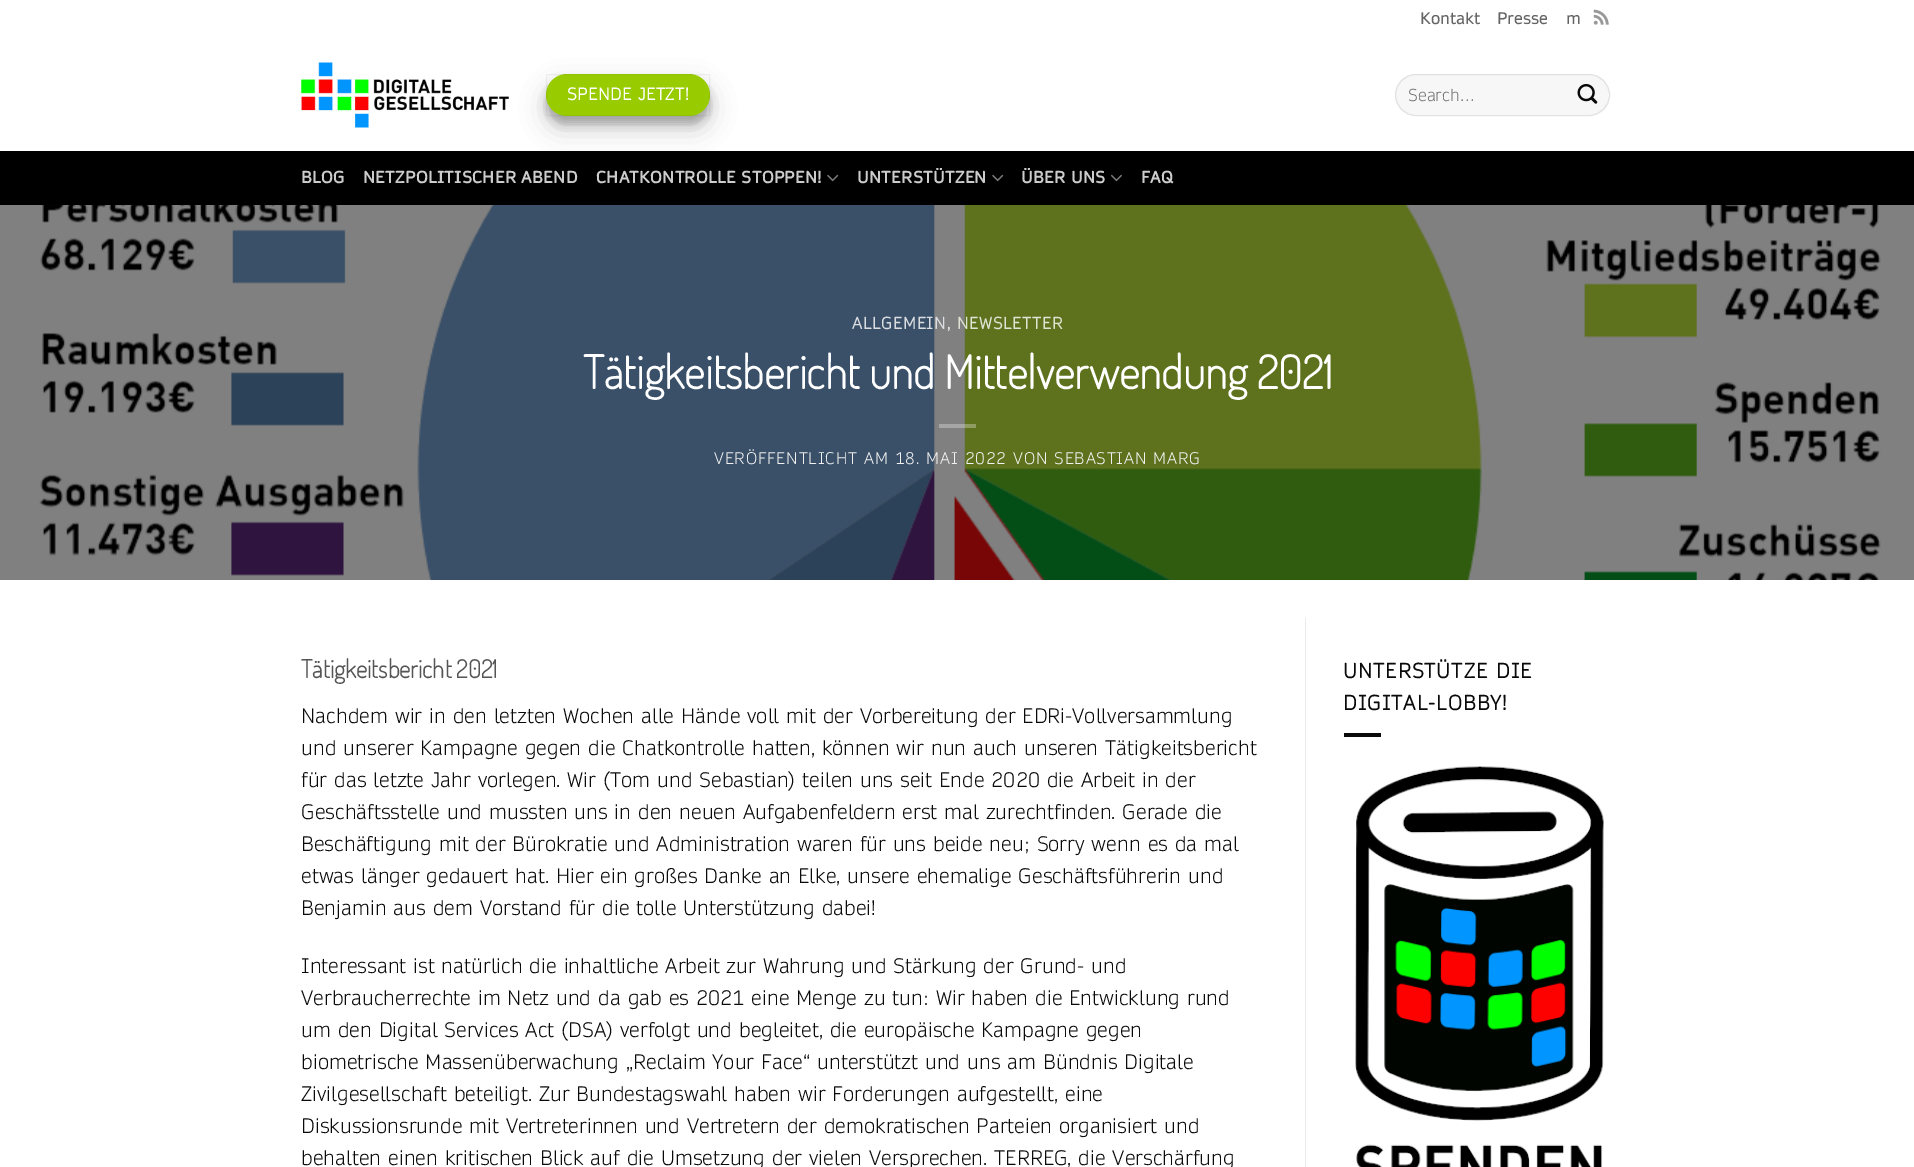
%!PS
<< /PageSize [1914 1167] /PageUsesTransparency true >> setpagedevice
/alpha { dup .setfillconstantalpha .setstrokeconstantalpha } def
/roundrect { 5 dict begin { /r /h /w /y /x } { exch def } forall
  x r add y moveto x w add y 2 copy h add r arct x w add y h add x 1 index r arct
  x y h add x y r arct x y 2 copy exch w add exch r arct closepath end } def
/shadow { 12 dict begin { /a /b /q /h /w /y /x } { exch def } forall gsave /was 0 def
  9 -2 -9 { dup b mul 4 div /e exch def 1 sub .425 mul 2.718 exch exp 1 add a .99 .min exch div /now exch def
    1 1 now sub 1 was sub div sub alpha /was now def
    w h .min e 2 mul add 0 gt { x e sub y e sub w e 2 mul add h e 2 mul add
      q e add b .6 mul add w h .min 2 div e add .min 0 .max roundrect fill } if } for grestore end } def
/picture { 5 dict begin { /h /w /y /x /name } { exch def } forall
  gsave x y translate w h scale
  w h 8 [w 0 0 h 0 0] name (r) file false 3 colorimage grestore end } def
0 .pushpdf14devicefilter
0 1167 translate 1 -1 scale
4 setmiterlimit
1 setgray
0 0 1914 1167 rectfill
/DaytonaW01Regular-Regular [16 0 0 -16 0 0] selectfont
0.396 setgray
1420 24 moveto (Kontakt) show
1497 24 moveto (Presse) show
1566 24 moveto (m) show
(img1.rgb) 1593 9 16 16 picture
(img2.rgb) 301 62 208 66 picture
0 setgray
546 81 164 43 21.5 4 0.22 shadow
0 151 1914 54 rectfill
546 86 164 43 21.5 12.5 0.19 shadow
0.6 0.8 0 setrgbcolor
546 74 164 42 21 roundrect fill
0.05 alpha
0 setgray
546.5 74.5 163 41 rectstroke
/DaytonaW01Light-Bold [16.5 0 0 -16.5 0 0] selectfont
1 alpha
1 setgray
567 100 moveto 0.5 0 (SPENDE JETZT!) ashow
0.969 setgray
1395 74 215 42 21 roundrect fill
0.09 alpha
0 setgray
1395.5 74.5 214 41 20.5 roundrect stroke
/DaytonaW01Light-Light [16.5 0 0 -16.5 0 0] selectfont
1 alpha
0.459 setgray
1408 101 moveto (Search…) show
(img3.rgb) 1577 83 21 21 picture
/DaytonaW01Regular-Bold [16 0 0 -16 0 0] selectfont
0.8 setgray
301 183 moveto 0.3 0 (BLOG) ashow
363 183 moveto 0.3 0 (NETZPOLITISCHER ABEND) ashow
596 183 moveto 0.3 0 (CHATKONTROLLE STOPPEN!) ashow
(img4.rgb) 827 174 12 8 picture
857 183 moveto 0.3 0 (UNTERSTÜTZEN) ashow
(img4.rgb) 992 174 12 8 picture
1021 183 moveto 0.3 0 (ÜBER UNS) ashow
(img5.rgb) 1111 174 11 8 picture
1141 183 moveto 0.3 0 (FAQ) ashow
(img6.rgb) 0 205 1914 375 picture
/DaytonaW01Light-Bold [16.1 0 0 -16.1 0 0] selectfont
0.855 0.867 0.882 setrgbcolor
852 329 moveto 0.8 0 (ALLGEMEIN) ashow
0.902 setgray
947 329 moveto 0.8 0 (,) ashow
0.875 0.89 0.831 setrgbcolor
957 329 moveto 0.8 0 (NEWSLETTER) ashow
/Dosis-Bold [46 0 0 -46 0 0] selectfont
1 setgray
583 389 moveto (Tätigkeitsbericht und Mittelverwendung 2021) show
0.3 alpha
939 424 37 4 rectfill
/DaytonaW01Light-Light [16.1 0 0 -16.1 0 0] selectfont
1 alpha
0.945 setgray
714 464 moveto 0.8 0 (VERÖFFENTLICHT AM 18. MAI 2022 VON SEBASTIAN MARG) ashow
/Dosis-Bold [25 0 0 -25 0 0] selectfont
0.333 setgray
301 678 moveto (Tätigkeitsbericht 2021) show
/DaytonaW01Light-Light [20 0 0 -20 0 0] selectfont
0.039 setgray
301 723 moveto (Nachdem wir in den letzten Wochen alle Hände voll mit der Vorbereitung der EDRi-Vollversammlung) show
301 755 moveto (und unserer Kampagne gegen die Chatkontrolle hatten, können wir nun auch unseren Tätigkeitsbericht) show
301 787 moveto (für das letzte Jahr vorlegen. Wir \(Tom und Sebastian\) teilen uns seit Ende 2020 die Arbeit in der) show
301 819 moveto (Geschäftsstelle und mussten uns in den neuen Aufgabenfeldern erst mal zurechtfinden. Gerade die) show
301 851 moveto (Beschäftigung mit der Bürokratie und Administration waren für uns beide neu; Sorry wenn es da mal) show
301 883 moveto (etwas länger gedauert hat. Hier ein großes Danke an Elke, unsere ehemalige Geschäftsführerin und) show
301 915 moveto (Benjamin aus dem Vorstand für die tolle Unterstützung dabei!) show
301 973 moveto (Interessant ist natürlich die inhaltliche Arbeit zur Wahrung und Stärkung der Grund- und) show
301 1005 moveto (Verbraucherrechte im Netz und da gab es 2021 eine Menge zu tun: Wir haben die Entwicklung rund) show
301 1037 moveto (um den Digital Services Act \(DSA\) verfolgt und begleitet, die europäische Kampagne gegen) show
301 1069 moveto (biometrische Massenüberwachung „Reclaim Your Face“ unterstützt und uns am Bündnis Digitale) show
301 1101 moveto (Zivilgesellschaft beteiligt. Zur Bundestagswahl haben wir Forderungen aufgestellt, eine) show
301 1133 moveto (Diskussionsrunde mit Vertreterinnen und Vertretern der demokratischen Parteien organisiert und) show
301 1165 moveto (behalten einen kritischen Blick auf die Umsetzung der vielen Versprechen. TERREG, die Verschärfung) show
0.925 setgray
1305 618 1 549 rectfill
/DaytonaW01Light-Bold [20 0 0 -20 0 0] selectfont
0.039 setgray
1343 678 moveto 1 0 (UNTERSTÜTZE DIE) ashow
1343 710 moveto 1 0 (DIGITAL-LOBBY!) ashow
1344 733 37 4 rectfill
(img7.rgb) 1355 766 249 401 picture
.poppdf14devicefilter showpage
